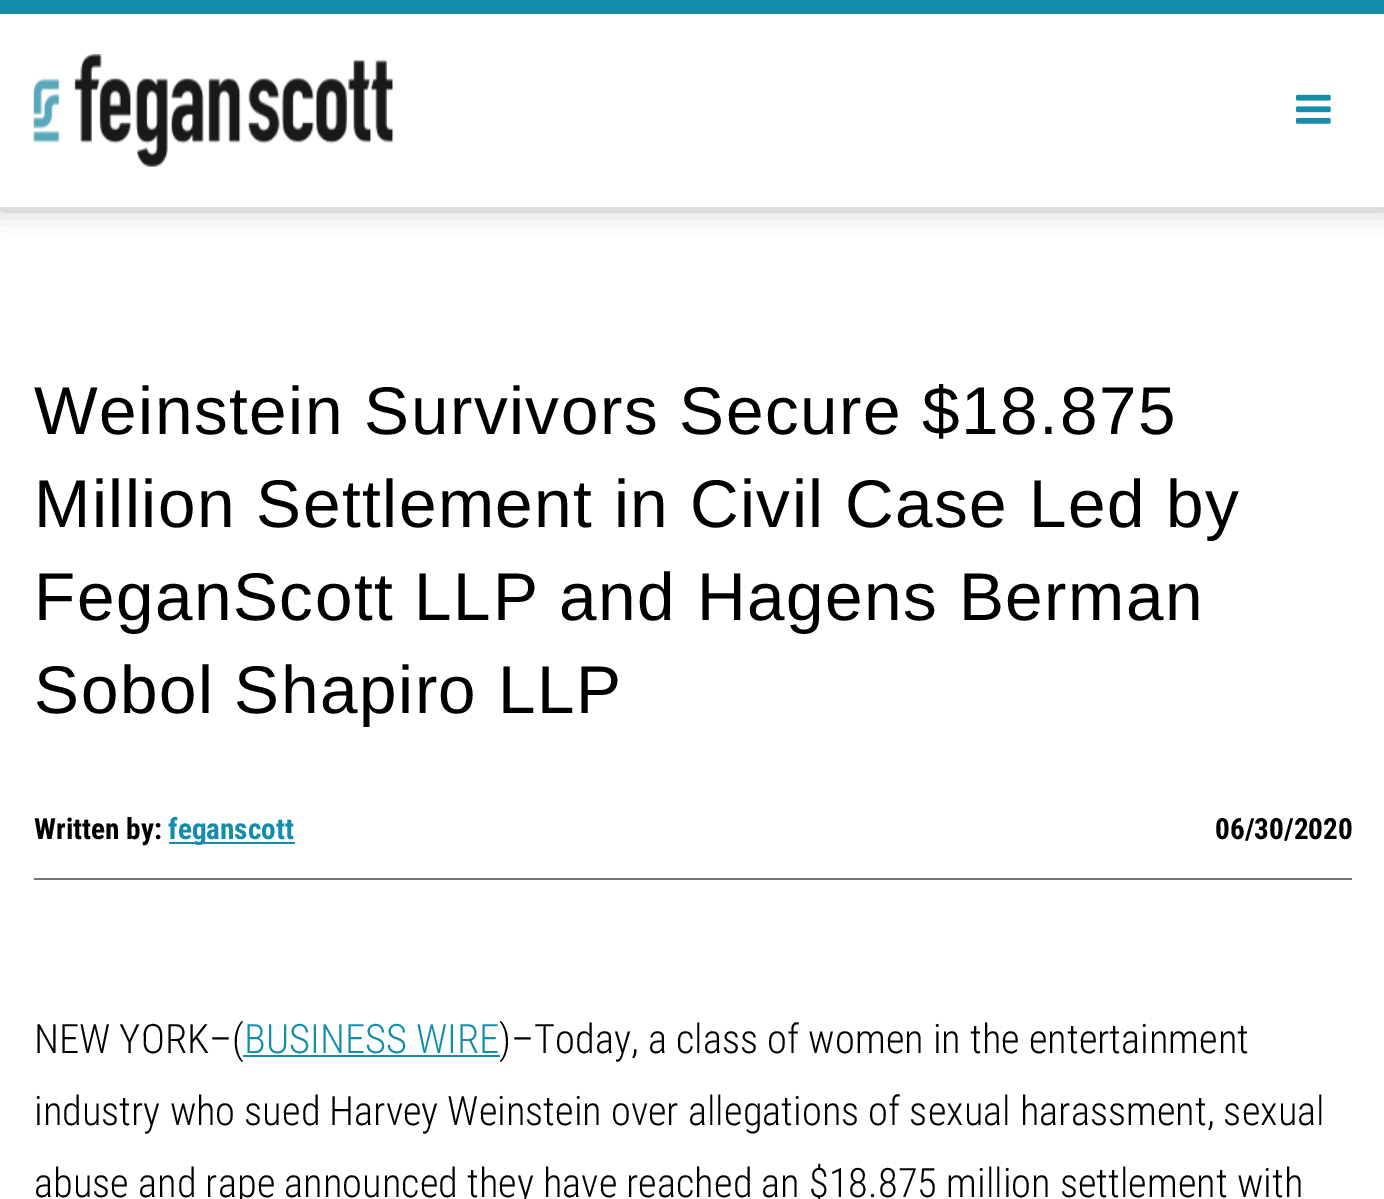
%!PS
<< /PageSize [1384 1199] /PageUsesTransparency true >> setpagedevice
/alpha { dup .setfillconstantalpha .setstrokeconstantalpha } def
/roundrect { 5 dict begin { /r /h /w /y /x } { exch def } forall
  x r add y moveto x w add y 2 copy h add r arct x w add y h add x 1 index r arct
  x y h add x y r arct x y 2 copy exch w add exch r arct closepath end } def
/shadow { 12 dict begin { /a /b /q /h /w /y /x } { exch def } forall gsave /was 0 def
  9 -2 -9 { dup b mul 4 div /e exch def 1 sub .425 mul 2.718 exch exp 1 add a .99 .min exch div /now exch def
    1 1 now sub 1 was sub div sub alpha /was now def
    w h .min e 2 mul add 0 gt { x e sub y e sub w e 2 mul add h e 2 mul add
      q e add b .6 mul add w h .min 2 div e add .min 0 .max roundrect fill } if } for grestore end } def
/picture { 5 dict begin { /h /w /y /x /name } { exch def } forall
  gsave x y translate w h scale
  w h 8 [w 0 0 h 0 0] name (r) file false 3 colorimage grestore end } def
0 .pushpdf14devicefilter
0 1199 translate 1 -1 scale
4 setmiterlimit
1 setgray
0 0 1384 1199 rectfill
0.533 setgray
0 -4 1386 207 0 13.5 1 shadow
1 setgray
0 14 1384 193 rectfill
0.078 0.553 0.671 setrgbcolor
0 0 1384 14 rectfill
(img1.rgb) 33 54 361 113 picture
(img2.rgb) 1296 94 35 30 picture
/LiberationSans-Regular [67.5 0 0 -67.5 0 0] selectfont
0 setgray
34 434 moveto 1.5 0 (Weinstein Survivors Secure $18.875) ashow
34 527 moveto 1.5 0 (Million Settlement in Civil Case Led by) ashow
34 620 moveto 1.5 0 (FeganScott LLP and Hagens Berman) ashow
34 713 moveto 1.5 0 (Sobol Shapiro LLP) ashow
0.467 setgray
34 878 1318 2 rectfill
/RobotoCondensed-Bold [29.25 0 0 -29.25 0 0] selectfont
0 setgray
34 839 moveto (Written by:) show
0.078 0.553 0.671 setrgbcolor
169 842 126 2 rectfill
168 839 moveto (feganscott) show
0 setgray
1215 839 moveto (06/30/2020) show
/RobotoCondensed-Light [40.5 0 0 -40.5 0 0] selectfont
34 1053 moveto (NEW YORK–\() show
0.078 0.553 0.671 setrgbcolor
244 1053 moveto (BUSINESS WIRE) show
243 1055 257 2 rectfill
0 setgray
499 1053 moveto (\)–Today, a class of women in the entertainment) show
34 1125 moveto (industry who sued Harvey Weinstein over allegations of sexual harassment, sexual) show
34 1197 moveto (abuse and rape announced they have reached an $18.875 million settlement with) show
.poppdf14devicefilter showpage
